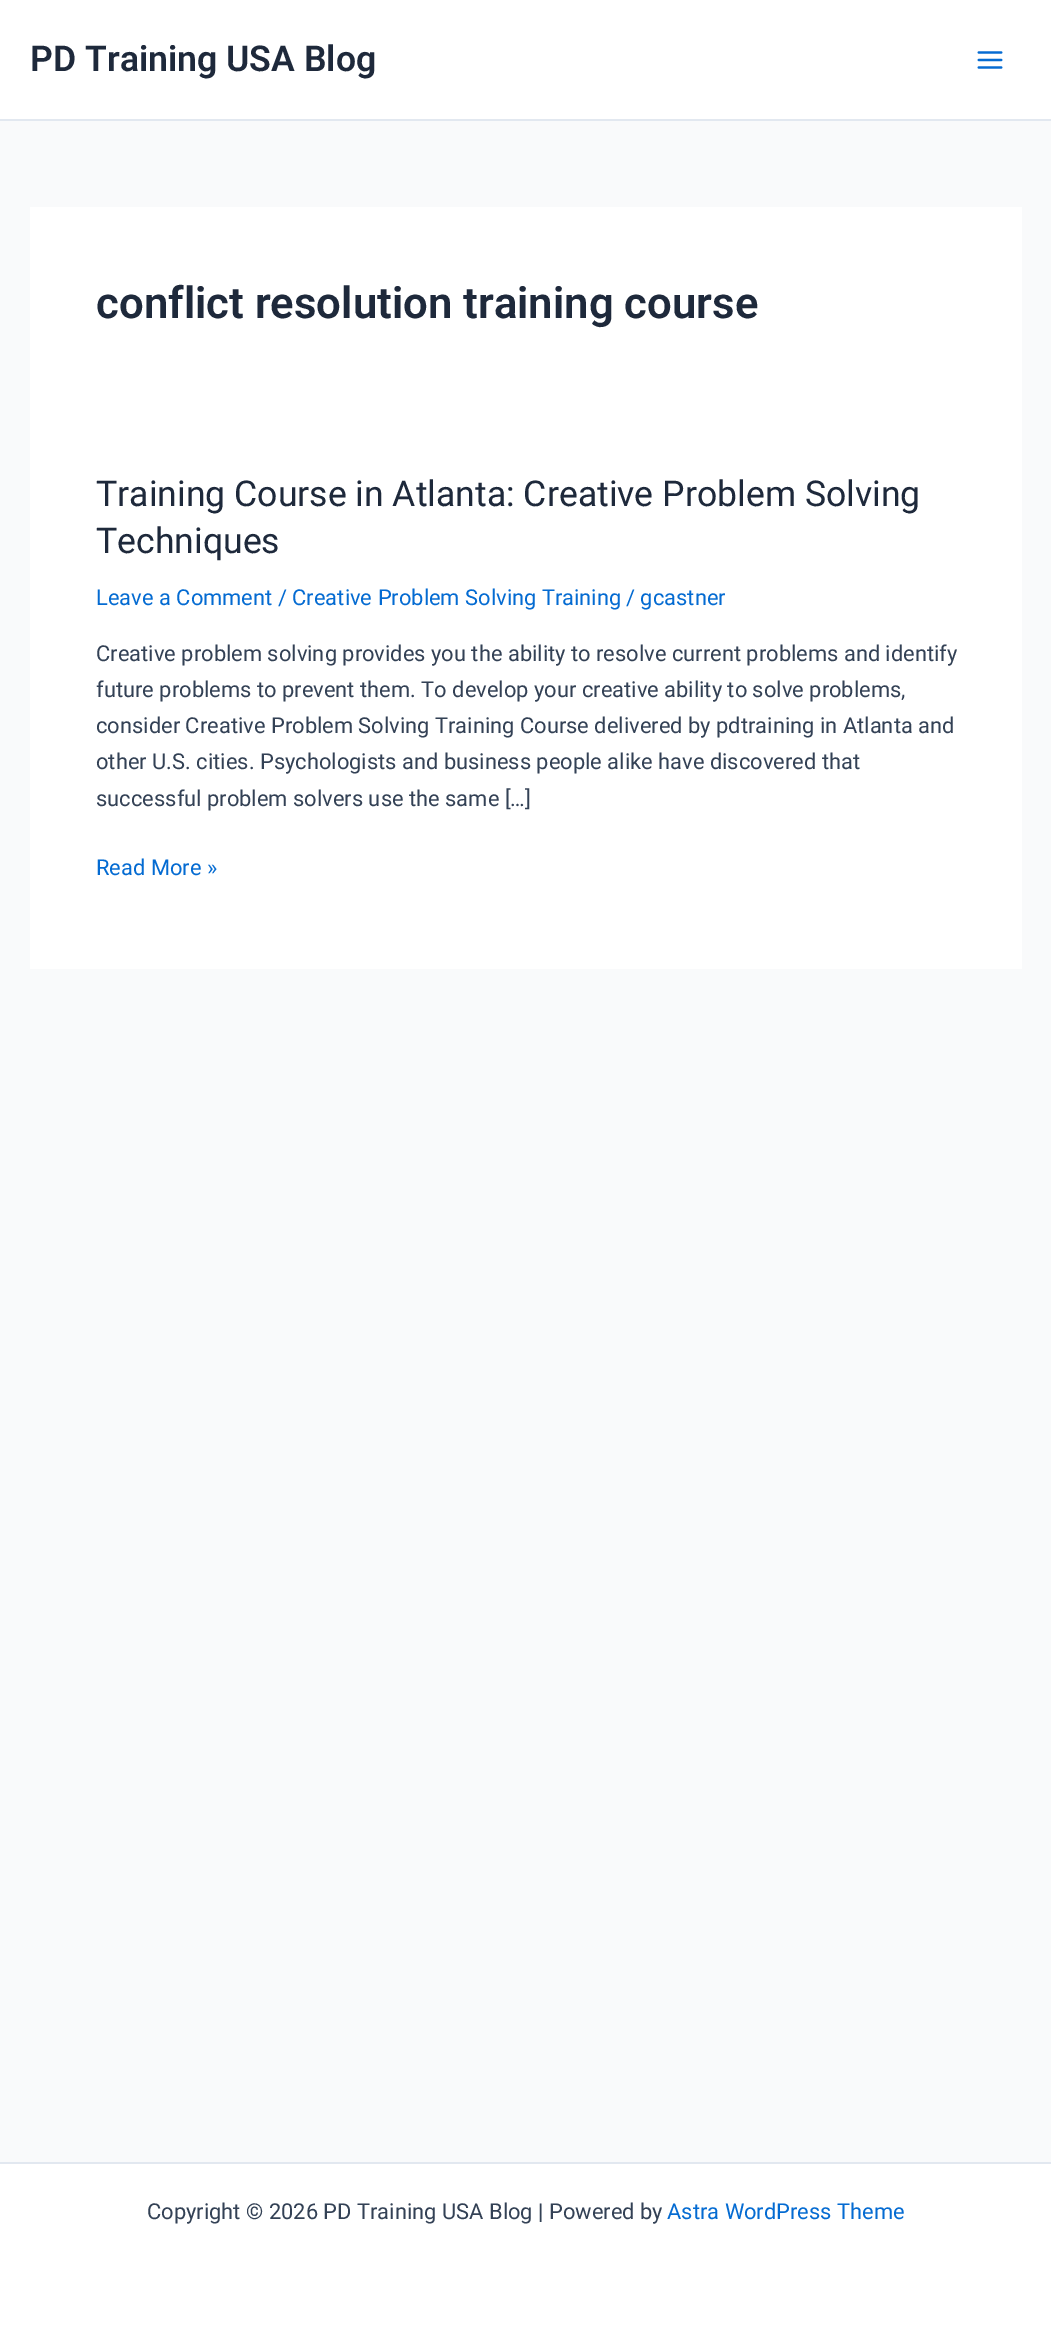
%!PS
<< /PageSize [1051 2342] >> setpagedevice
/picture { 5 dict begin { /h /w /y /x /name } { exch def } forall
  gsave x y translate w h scale
  w h 8 [w 0 0 h 0 0] name (r) file false 3 colorimage grestore end } def
0 2342 translate 1 -1 scale
4 setmiterlimit
0.976 0.98 0.984 setrgbcolor
0 0 1051 2342 rectfill
1 setgray
0 0 1051 119 rectfill
0.886 0.91 0.941 setrgbcolor
0 119 1051 2 rectfill
/Roboto-SemiBold [35.6 0 0 -35.6 0 0] selectfont
0.118 0.161 0.231 setrgbcolor
30 71 moveto (PD Training USA Blog) show
(img1.rgb) 977 51 26 18 picture
1 setgray
30 207 992 762 rectfill
/Roboto-SemiBold [43.75 0 0 -43.75 0 0] selectfont
0.118 0.161 0.231 setrgbcolor
96 318 moveto (conflict resolution training course) show
/Roboto-Regular [35.6 0 0 -35.6 0 0] selectfont
96 506 moveto (Training Course in Atlanta: Creative Problem Solving) show
96 553 moveto (Techniques) show
/Roboto-Regular [21.9 0 0 -21.9 0 0] selectfont
0.016 0.42 0.824 setrgbcolor
96 605 moveto (Leave a Comment / Creative Problem Solving Training) show
626 605 moveto (/ gcastner) show
0.2 0.255 0.333 setrgbcolor
96 661 moveto (Creative problem solving provides you the ability to resolve current problems and identify) show
96 697 moveto (future problems to prevent them. To develop your creative ability to solve problems,) show
96 733 moveto (consider Creative Problem Solving Training Course delivered by pdtraining in Atlanta and) show
96 769 moveto (other U.S. cities. Psychologists and business people alike have discovered that) show
96 806 moveto (successful problem solvers use the same […]) show
0.016 0.42 0.824 setrgbcolor
96 875 moveto (Read More ») show
1 setgray
0 2164 1051 178 rectfill
0.886 0.91 0.941 setrgbcolor
0 2162 1051 2 rectfill
0.2 0.255 0.333 setrgbcolor
147 2219 moveto (Copyright © 2026 PD Training USA Blog | Powered by) show
0.016 0.42 0.824 setrgbcolor
667 2219 moveto (Astra WordPress Theme) show
showpage
